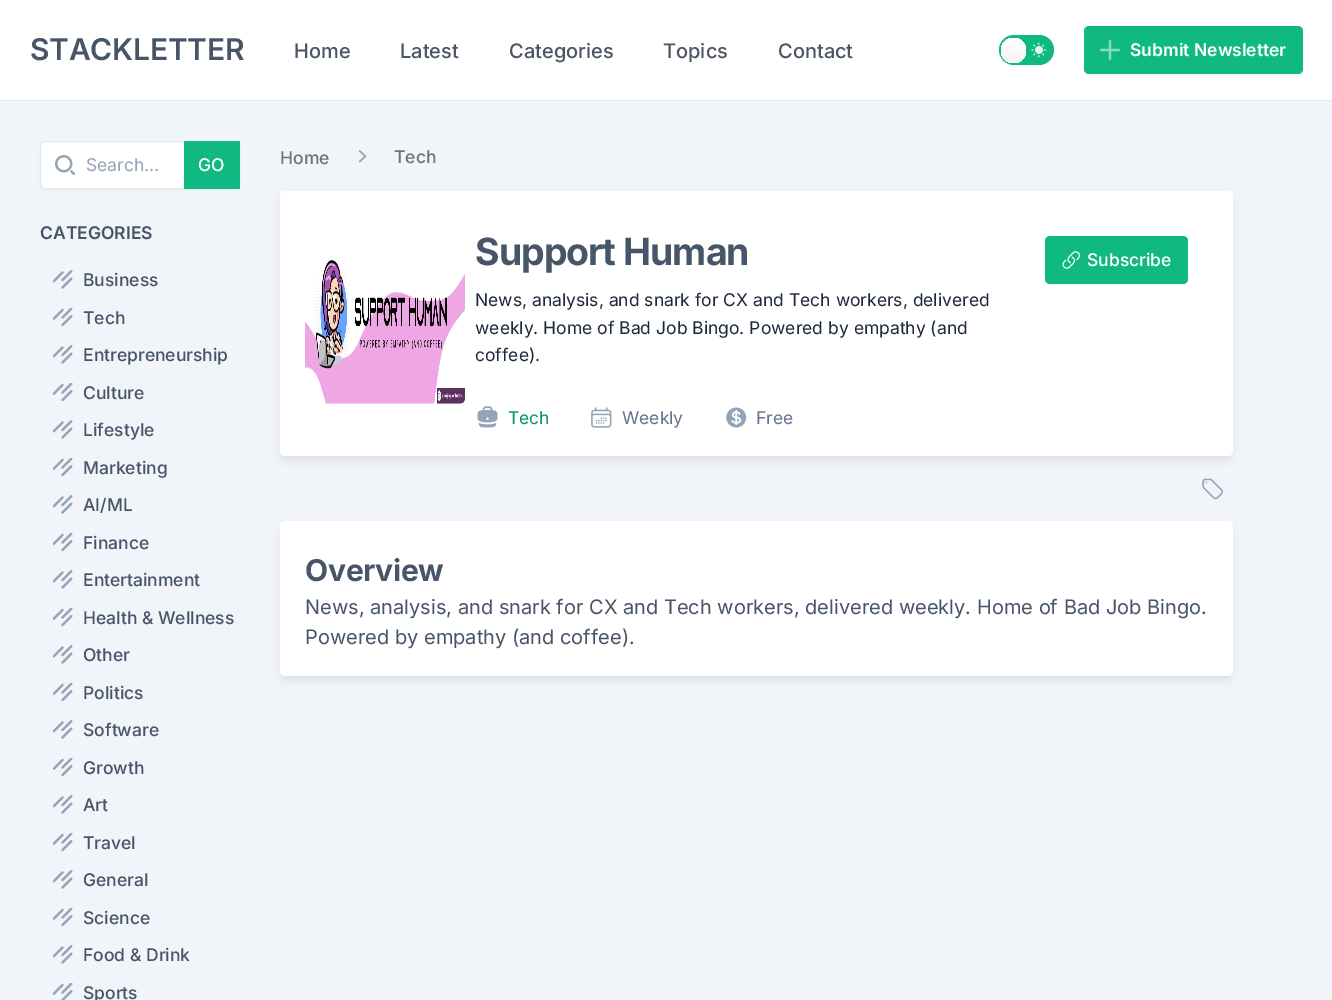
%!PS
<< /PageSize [1332 1000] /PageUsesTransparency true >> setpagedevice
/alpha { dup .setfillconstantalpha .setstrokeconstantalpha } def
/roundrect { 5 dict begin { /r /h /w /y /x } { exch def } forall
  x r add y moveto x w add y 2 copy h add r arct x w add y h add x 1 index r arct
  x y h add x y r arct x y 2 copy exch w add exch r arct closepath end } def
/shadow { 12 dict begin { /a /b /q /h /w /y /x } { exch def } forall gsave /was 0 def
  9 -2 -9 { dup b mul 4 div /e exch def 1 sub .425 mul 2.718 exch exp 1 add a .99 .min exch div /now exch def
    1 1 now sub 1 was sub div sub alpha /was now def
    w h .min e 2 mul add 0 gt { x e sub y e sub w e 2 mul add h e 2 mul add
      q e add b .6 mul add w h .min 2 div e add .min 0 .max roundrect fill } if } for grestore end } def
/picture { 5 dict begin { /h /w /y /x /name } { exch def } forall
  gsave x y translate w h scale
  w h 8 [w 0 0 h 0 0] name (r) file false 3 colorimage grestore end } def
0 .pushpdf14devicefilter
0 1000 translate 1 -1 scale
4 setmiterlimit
0.945 0.961 0.976 setrgbcolor
0 0 1332 1000 rectfill
1 setgray
0 0 1332 100 rectfill
0.886 0.91 0.941 setrgbcolor
0 100 1332 1 rectfill
/Inter-SemiBold [30 0 0 -30 0 0] selectfont
0.278 0.333 0.412 setrgbcolor
30 60 moveto -0.25 0 (STACKLETTER) ashow
/Inter-Medium [20 0 0 -20 0 0] selectfont
0.294 0.333 0.388 setrgbcolor
294 58 moveto (Home) show
400 58 moveto (Latest) show
509 58 moveto (Categories) show
663 58 moveto (Topics) show
778 58 moveto (Contact) show
0.063 0.725 0.506 setrgbcolor
999 35 55 30 15 roundrect fill
gsave newpath 1013.5 50.5 12.5 0 360 arc closepath clip newpath
<< /ShadingType 2 /ColorSpace /DeviceRGB /Coords [1014 63 1014 38] /Extend [true true] /Function << /FunctionType 2 /Domain [0 1] /C0 [0.953 0.957 0.965] /C1 [1 1 1] /N 1 >> >> shfill grestore
(img1.rgb) 1031 42 16 16 picture
0 setgray
1084 28 219 47 5 1 0.05 shadow
0.063 0.725 0.506 setrgbcolor
1084 26 219 48 5 roundrect fill
(img2.rgb) 1100 40 20 20 picture
/Inter-SemiBold [17.5 0 0 -17.5 0 0] selectfont
1 setgray
1130 56 moveto (Submit Newsletter) show
0 setgray
40 143 200 47 5 1 0.05 shadow
1 setgray
40.5 141.5 199 47 4.5 roundrect gsave fill grestore
0.886 0.91 0.941 setrgbcolor
stroke
(img3.rgb) 55 155 20 20 picture
/Inter-Regular [17.5 0 0 -17.5 0 0] selectfont
0.58 0.639 0.722 setrgbcolor
86 171 moveto (Search…) show
0.063 0.725 0.506 setrgbcolor
184 141 56 48 rectfill
/Inter-Medium [17.5 0 0 -17.5 0 0] selectfont
1 setgray
198 171 moveto (GO) show
/Inter-SemiBold [17.5 0 0 -17.5 0 0] selectfont
0.278 0.333 0.412 setrgbcolor
40 239 moveto (CATEGORIES) show
(img4.rgb) 53 270 20 19 picture
/Inter-Medium [17.5 0 0 -17.5 0 0] selectfont
83 286 moveto (Business) show
(img5.rgb) 53 308 20 19 picture
83 324 moveto (Tech) show
(img4.rgb) 53 345 20 19 picture
83 361 moveto (Entrepreneurship) show
(img5.rgb) 53 383 20 19 picture
83 399 moveto (Culture) show
(img4.rgb) 53 420 20 19 picture
83 436 moveto (Lifestyle) show
(img5.rgb) 53 458 20 19 picture
83 474 moveto (Marketing) show
(img4.rgb) 53 495 20 19 picture
83 511 moveto (AI/ML) show
(img5.rgb) 53 533 20 19 picture
83 549 moveto (Finance) show
(img4.rgb) 53 570 20 19 picture
83 586 moveto (Entertainment) show
(img5.rgb) 53 608 20 19 picture
83 624 moveto (Health & Wellness) show
(img4.rgb) 53 645 20 19 picture
83 661 moveto (Other) show
(img5.rgb) 53 683 20 19 picture
83 699 moveto (Politics) show
(img4.rgb) 53 720 20 19 picture
83 736 moveto (Software) show
(img5.rgb) 53 758 20 19 picture
83 774 moveto (Growth) show
(img4.rgb) 53 795 20 19 picture
83 811 moveto (Art) show
(img5.rgb) 53 833 20 19 picture
83 849 moveto (Travel) show
(img4.rgb) 53 870 20 19 picture
83 886 moveto (General) show
(img5.rgb) 53 908 20 19 picture
83 924 moveto (Science) show
(img4.rgb) 53 945 20 19 picture
83 961 moveto (Food & Drink) show
(img6.rgb) 53 983 20 17 picture
83 999 moveto (Sports) show
0.42 0.447 0.502 setrgbcolor
280 164 moveto (Home) show
(img7.rgb) 358 150 9 13 picture
394 163 moveto (Tech) show
0 setgray
281 198 950 262 4 4 0.08 shadow
1 setgray
280 191 953 265 5 roundrect fill
(img8.rgb) 305 256 160 148 picture
/Inter-Bold [37.5 0 0 -37.5 0 0] selectfont
0.278 0.333 0.412 setrgbcolor
475 265 moveto -1 0 (Support Human) ashow
/Inter-Regular [17.5 0 0 -17.5 0 0] selectfont
0.118 0.161 0.231 setrgbcolor
475 306 moveto (News, analysis, and snark for CX and Tech workers, delivered) show
475 334 moveto (weekly. Home of Bad Job Bingo. Powered by empathy \(and) show
475 361 moveto (coffee\).) show
(img9.rgb) 477 406 21 22 picture
0.02 0.588 0.412 setrgbcolor
508 424 moveto (Tech) show
(img10.rgb) 591 407 21 21 picture
0.392 0.455 0.545 setrgbcolor
622 424 moveto (Weekly) show
(img11.rgb) 726 407 21 21 picture
756 424 moveto (Free) show
0 setgray
1045 238 143 47 5 1 0.05 shadow
0.063 0.725 0.506 setrgbcolor
1045 236 143 48 5 roundrect fill
(img12.rgb) 1062 251 18 18 picture
/Inter-Medium [17.5 0 0 -17.5 0 0] selectfont
1 setgray
1087 266 moveto (Subscribe) show
(img13.rgb) 1202 478 21 22 picture
0 setgray
281 528 950 152 4 4 0.08 shadow
1 setgray
280 521 953 155 5 roundrect fill
/Inter-Bold [30 0 0 -30 0 0] selectfont
0.278 0.333 0.412 setrgbcolor
305 581 moveto -0.25 0 (Overview) ashow
/Inter-Regular [20 0 0 -20 0 0] selectfont
305 614 moveto (News, analysis, and snark for CX and Tech workers, delivered weekly. Home of Bad Job Bingo.) show
305 644 moveto (Powered by empathy \(and coffee\).) show
.poppdf14devicefilter showpage
